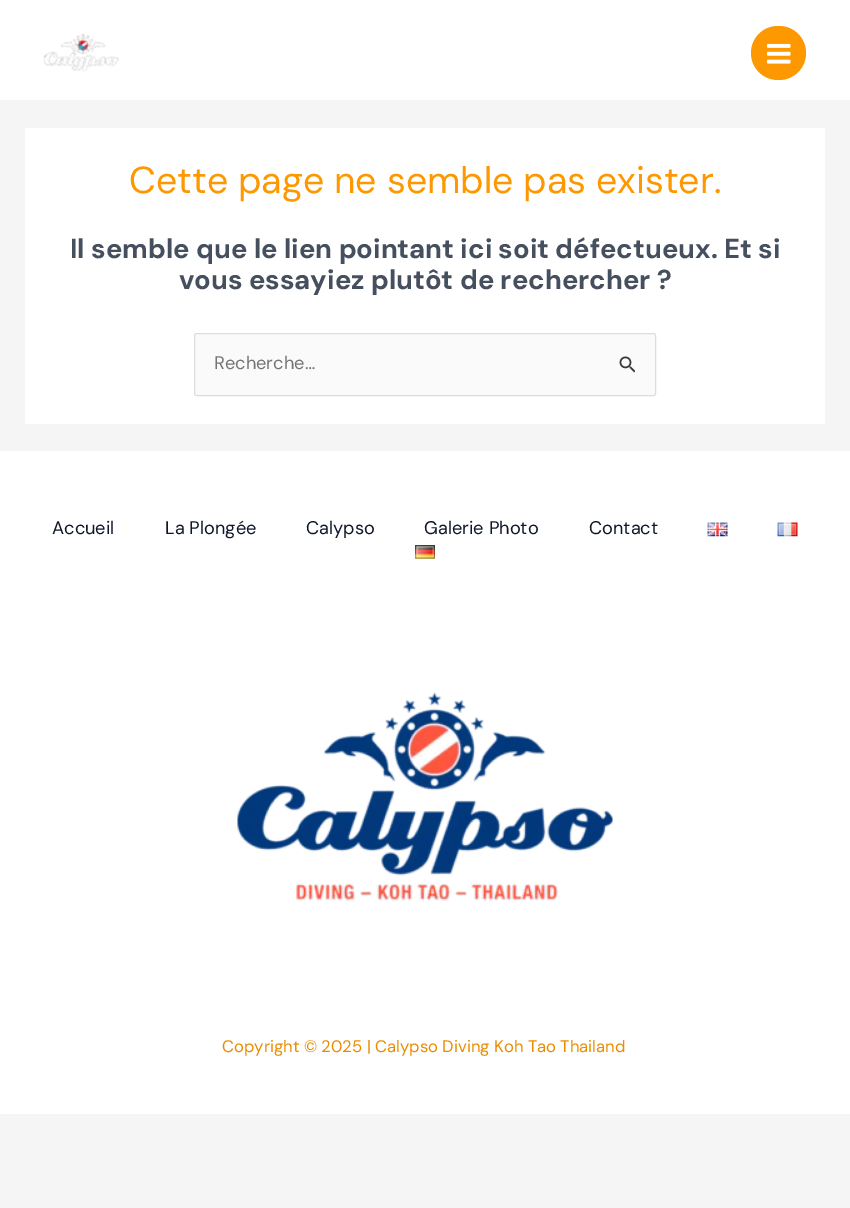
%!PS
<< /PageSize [850 1208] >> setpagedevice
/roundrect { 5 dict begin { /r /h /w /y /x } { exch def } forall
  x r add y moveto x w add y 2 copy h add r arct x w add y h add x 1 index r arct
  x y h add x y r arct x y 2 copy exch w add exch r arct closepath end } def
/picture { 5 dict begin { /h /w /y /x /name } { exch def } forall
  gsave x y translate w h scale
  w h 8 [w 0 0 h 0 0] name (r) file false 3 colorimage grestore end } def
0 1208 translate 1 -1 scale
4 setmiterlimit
0.961 setgray
0 0 850 1208 rectfill
1 setgray
0 0 850 100 rectfill
(img1.rgb) 43 33 76 39 picture
0.992 0.596 0 setrgbcolor
751 26 55 54 27 roundrect fill
(img2.rgb) 766 43 25 21 picture
1 setgray
25 128 800 296 rectfill
/DMSans-Regular [37.5 0 0 -37.5 0 0] selectfont
0.992 0.596 0 setrgbcolor
129 193 moveto (Cette page ne semble pas exister.) show
/DMSans-Bold [27.35 0 0 -27.35 0 0] selectfont
0.271 0.31 0.369 setrgbcolor
70 258 moveto (Il semble que le lien pointant ici soit défectueux. Et si) show
179 289 moveto (vous essayiez plutôt de rechercher ?) show
0.98 setgray
194.5 333.5 461 62 2 roundrect gsave fill grestore
0.867 setgray
stroke
/DMSans-Regular [18.25 0 0 -18.25 0 0] selectfont
0.459 setgray
214 369 moveto (Recherche…) show
(img3.rgb) 619 356 16 17 picture
1 setgray
0 451 850 663 rectfill
0.059 0.09 0.165 setrgbcolor
52 534 moveto (Accueil) show
165 534 moveto (La Plongée) show
306 534 moveto (Calypso) show
424 534 moveto (Galerie Photo) show
589 534 moveto (Contact) show
(img4.rgb) 707 522 21 15 picture
(img5.rgb) 777 522 21 15 picture
(img6.rgb) 415 545 20 14 picture
(img7.rgb) 237 692 376 212 picture
/DMSans-Regular [16.7 0 0 -16.7 0 0] selectfont
0.914 0.549 0 setrgbcolor
222 1052 moveto (Copyright © 2025 | Calypso Diving Koh Tao Thailand) show
showpage
